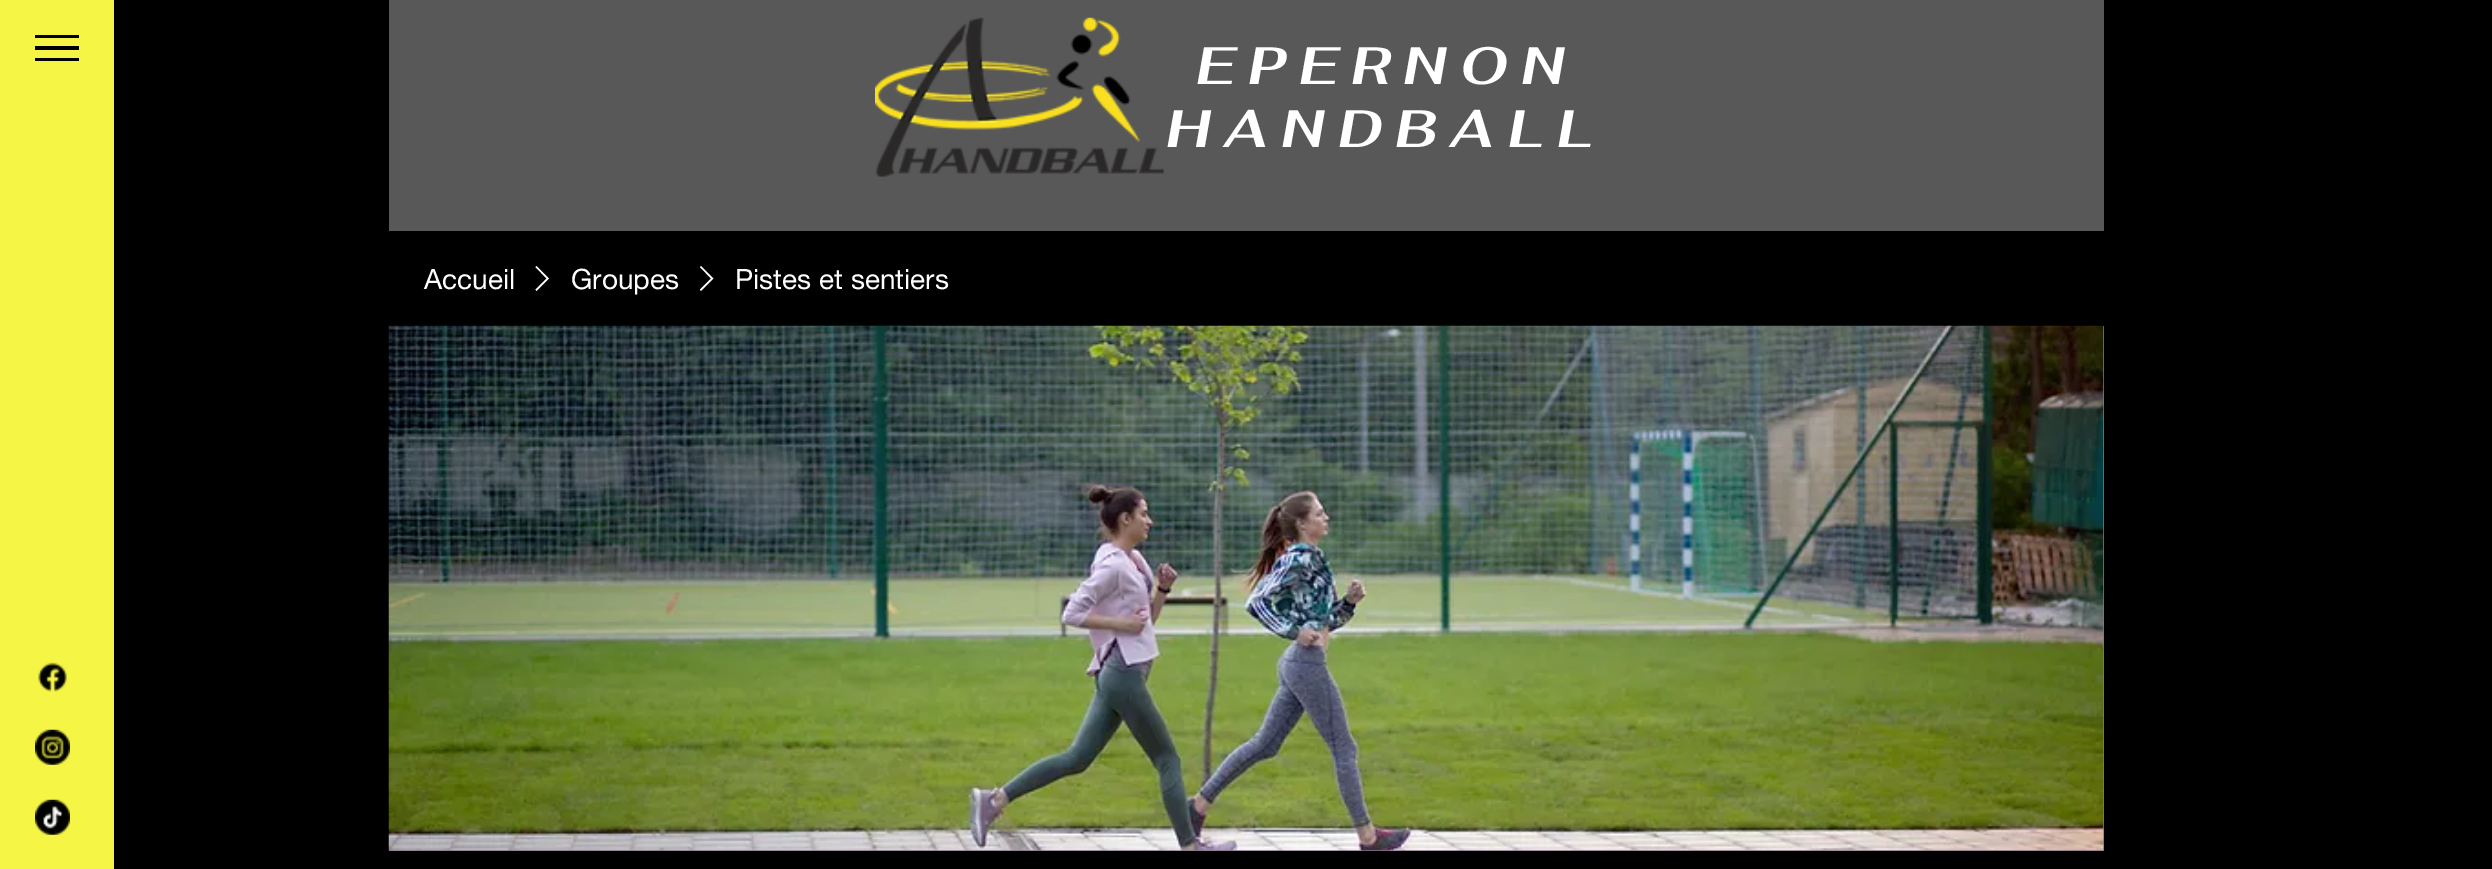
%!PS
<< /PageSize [2492 869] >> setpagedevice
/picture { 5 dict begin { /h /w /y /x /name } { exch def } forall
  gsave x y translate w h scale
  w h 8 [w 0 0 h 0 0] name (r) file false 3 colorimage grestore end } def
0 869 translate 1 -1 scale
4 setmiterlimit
0 setgray
0 0 2492 869 rectfill
0.961 0.961 0.271 setrgbcolor
0 0 114 869 rectfill
0 setgray
35 58 44 3 rectfill
35 35 44 3 rectfill
35 46 44 4 rectfill
0.345 setgray
389 0 1715 231 rectfill
(img1.rgb) 875 17 289 160 picture
/Fahkwang-BoldItalic [52.5 0 0 -52.5 0 0] selectfont
1 setgray
1196 84 moveto 13 0 (EPERNON) ashow
1166 147 moveto 13 0 (HANDBALL) ashow
/helveticaneue-Regular [28 0 0 -28 0 0] selectfont
424 289 moveto (Accueil) show
newpath 536.5 266 moveto 549 278.5 lineto 536.5 291 lineto 535.5 289.5 lineto 546.5 278.5 lineto 535.5 267 lineto closepath eofill
571 289 moveto (Groupes) show
newpath 701 266 moveto 713.5 278.5 lineto 701 291 lineto 700 289.5 lineto 711 278.5 lineto 700 267 lineto closepath eofill
735 289 moveto (Pistes et sentiers) show
0.541 0.467 0.553 setrgbcolor
389 326 1715 525 rectfill
(img2.rgb) 388 325 1716 526 picture
(img3.rgb) 38 662 29 30 picture
(img4.rgb) 35 729 35 36 picture
(img5.rgb) 35 799 35 36 picture
showpage
